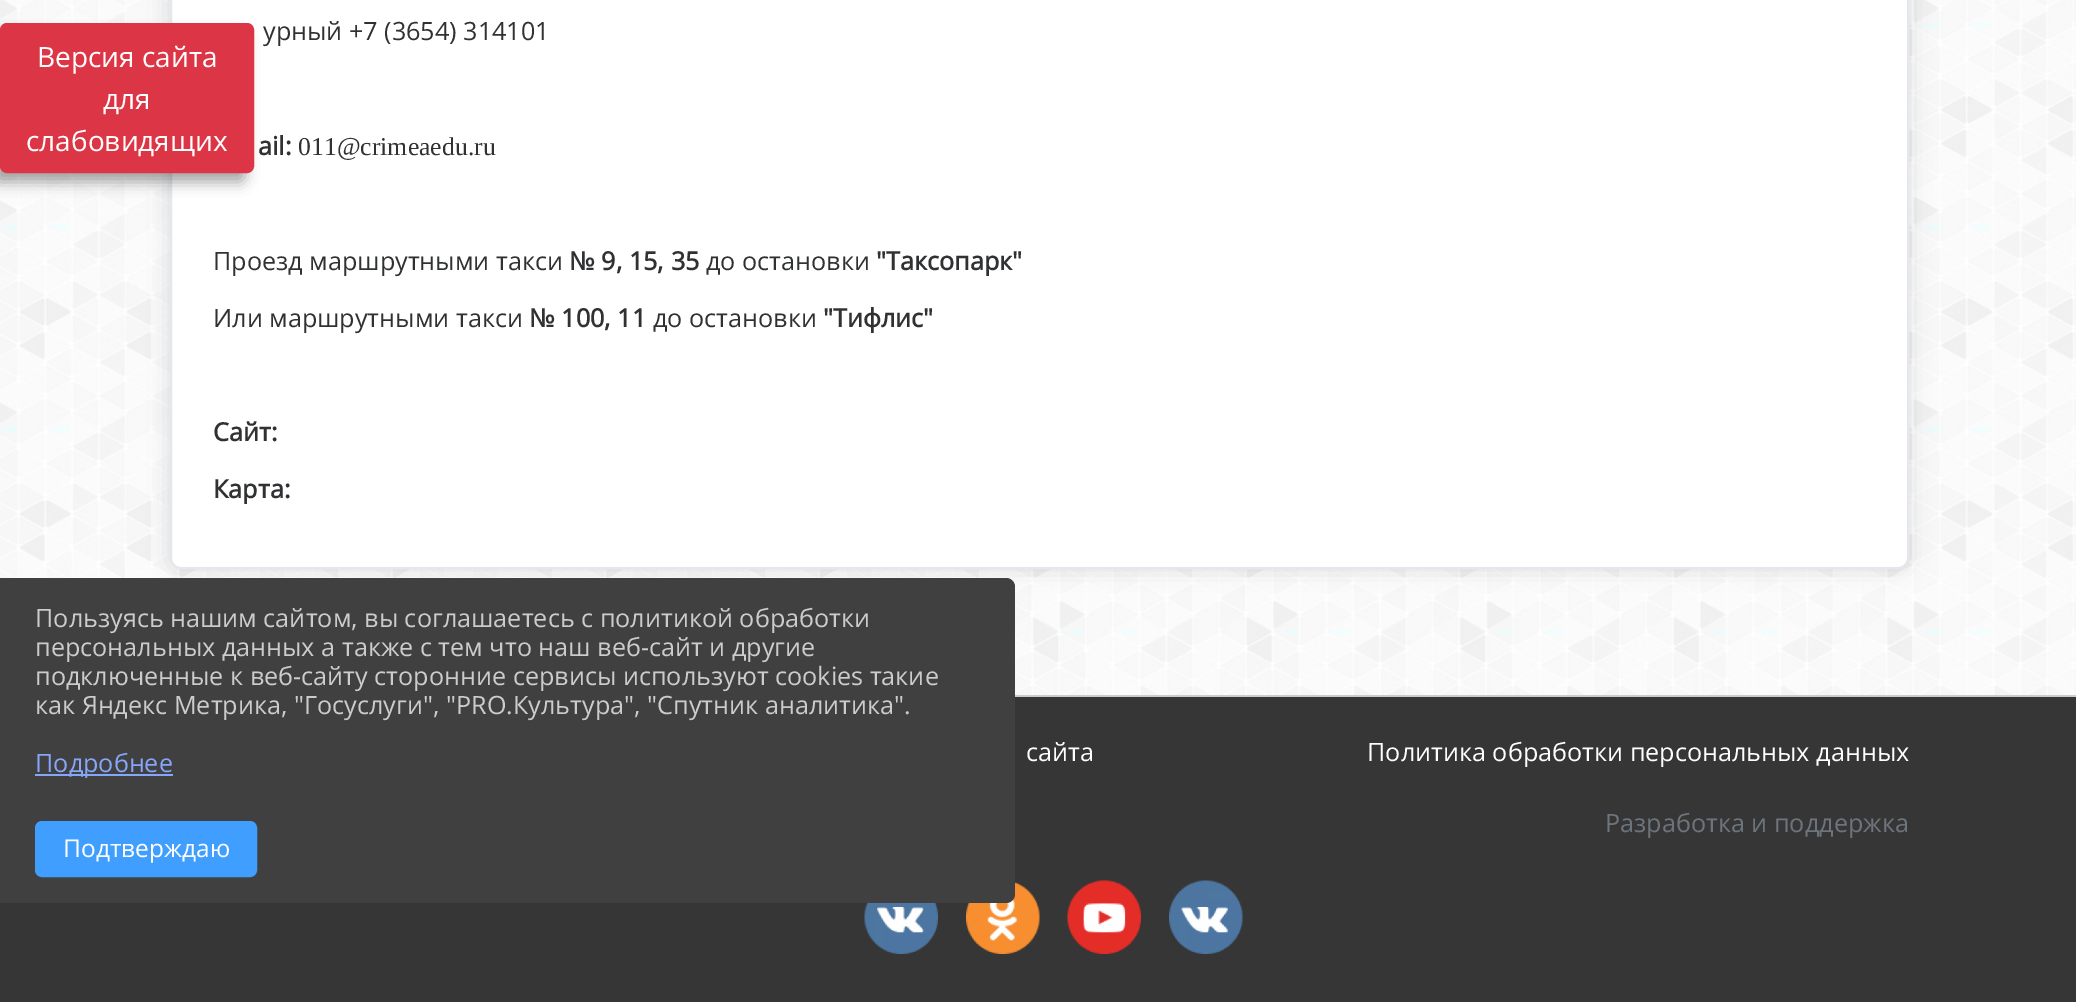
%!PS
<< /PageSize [2076 1002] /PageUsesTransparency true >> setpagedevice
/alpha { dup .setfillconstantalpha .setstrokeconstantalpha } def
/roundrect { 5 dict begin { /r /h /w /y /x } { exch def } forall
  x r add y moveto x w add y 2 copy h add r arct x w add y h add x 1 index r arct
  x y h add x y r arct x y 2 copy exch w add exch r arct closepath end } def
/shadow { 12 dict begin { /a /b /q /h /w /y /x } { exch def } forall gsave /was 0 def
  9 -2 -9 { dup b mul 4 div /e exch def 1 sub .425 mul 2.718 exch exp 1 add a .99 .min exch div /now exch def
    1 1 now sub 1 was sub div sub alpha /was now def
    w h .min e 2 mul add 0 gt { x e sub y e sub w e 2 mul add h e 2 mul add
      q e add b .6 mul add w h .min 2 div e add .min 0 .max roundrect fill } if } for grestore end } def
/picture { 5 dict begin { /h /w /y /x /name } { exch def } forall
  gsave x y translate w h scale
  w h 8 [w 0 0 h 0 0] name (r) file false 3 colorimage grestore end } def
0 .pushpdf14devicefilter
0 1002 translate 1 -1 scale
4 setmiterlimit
1 setgray
0 0 2076 1002 rectfill
(img1.rgb) 0 0 2076 695 picture
0 setgray
170 -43 1739 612 11 10.5 0.12 shadow
1 setgray
171 -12 1737 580 10 roundrect gsave fill grestore
0.894 0.906 0.929 setrgbcolor
2 setlinewidth
stroke
0 setgray
-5 35 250 147 5 7 0.35 shadow
0.863 0.208 0.271 setrgbcolor
1 24 252 148 6 roundrect gsave fill grestore
stroke
/OpenSans-Regular [28 0 0 -28 0 0] selectfont
1 setgray
37 67 moveto (Версия сайта) show
103 109 moveto (для) show
26 151 moveto (слабовидящих) show
/OpenSans-Regular [25.2 0 0 -25.2 0 0] selectfont
0.188 0.192 0.2 setrgbcolor
263 40 moveto (урный +7 \(3654\) 314101) show
/OpenSans-Bold [25.2 0 0 -25.2 0 0] selectfont
258 155 moveto (ail:) show
/LiberationSerif-Regular [25.75 0 0 -25.75 0 0] selectfont
298 155 moveto (011@crimeaedu.ru) show
/OpenSans-Regular [25.2 0 0 -25.2 0 0] selectfont
213 270 moveto (Проезд маршрутными такси) show
/OpenSans-Bold [25.2 0 0 -25.2 0 0] selectfont
569 270 moveto (№ 9, 15, 35) show
/OpenSans-Regular [25.2 0 0 -25.2 0 0] selectfont
706 270 moveto (до остановки) show
/OpenSans-Bold [25.2 0 0 -25.2 0 0] selectfont
876 270 moveto ("Таксопарк") show
/OpenSans-Regular [25.2 0 0 -25.2 0 0] selectfont
213 327 moveto (Или маршрутными такси) show
/OpenSans-Bold [25.2 0 0 -25.2 0 0] selectfont
529 327 moveto (№ 100, 11) show
/OpenSans-Regular [25.2 0 0 -25.2 0 0] selectfont
653 327 moveto (до остановки) show
/OpenSans-Bold [25.2 0 0 -25.2 0 0] selectfont
823 327 moveto ("Тифлис") show
213 441 moveto (Сайт:) show
213 498 moveto (Карта:) show
0.216 0.212 0.212 setrgbcolor
0 697 2076 305 rectfill
0.8 setgray
1015 695 1061 2 rectfill
/OpenSans-Regular [25.2 0 0 -25.2 0 0] selectfont
1 setgray
1026 761 moveto (сайта) show
1367 761 moveto (Политика обработки персональных данных) show
0.424 0.459 0.49 setrgbcolor
1605 832 moveto (Разработка и поддержка) show
(img2.rgb) 864 903 74 51 picture
(img3.rgb) 966 882 74 72 picture
(img4.rgb) 1067 880 74 74 picture
(img5.rgb) 1169 880 74 74 picture
0.251 setgray
newpath 0 578 moveto 1006 578 lineto 1011 578 1015 582 1015 587 curveto 1015 894 lineto 1015 899 1011 903 1006 903 curveto 0 903 lineto closepath fill
0.8 setgray
35 627 moveto (Пользуясь нашим сайтом, вы соглашаетесь с политикой обработки) show
35 656 moveto (персональных данных а также с тем что наш веб-сайт и другие) show
35 685 moveto (подключенные к веб-сайту сторонние сервисы используют cookies такие) show
35 714 moveto (как Яндекс Метрика, "Госуслуги", "PRO.Культура", "Спутник аналитика".) show
0.522 0.651 0.976 setrgbcolor
35 774 138 2 rectfill
35 772 moveto (Подробнее) show
0.251 0.62 1 setrgbcolor
36 822 220 54 6 roundrect gsave fill grestore
stroke
/OpenSans-Regular [24.5 0 0 -24.5 0 0] selectfont
1 setgray
63 857 moveto (Подтверждаю) show
.poppdf14devicefilter showpage
